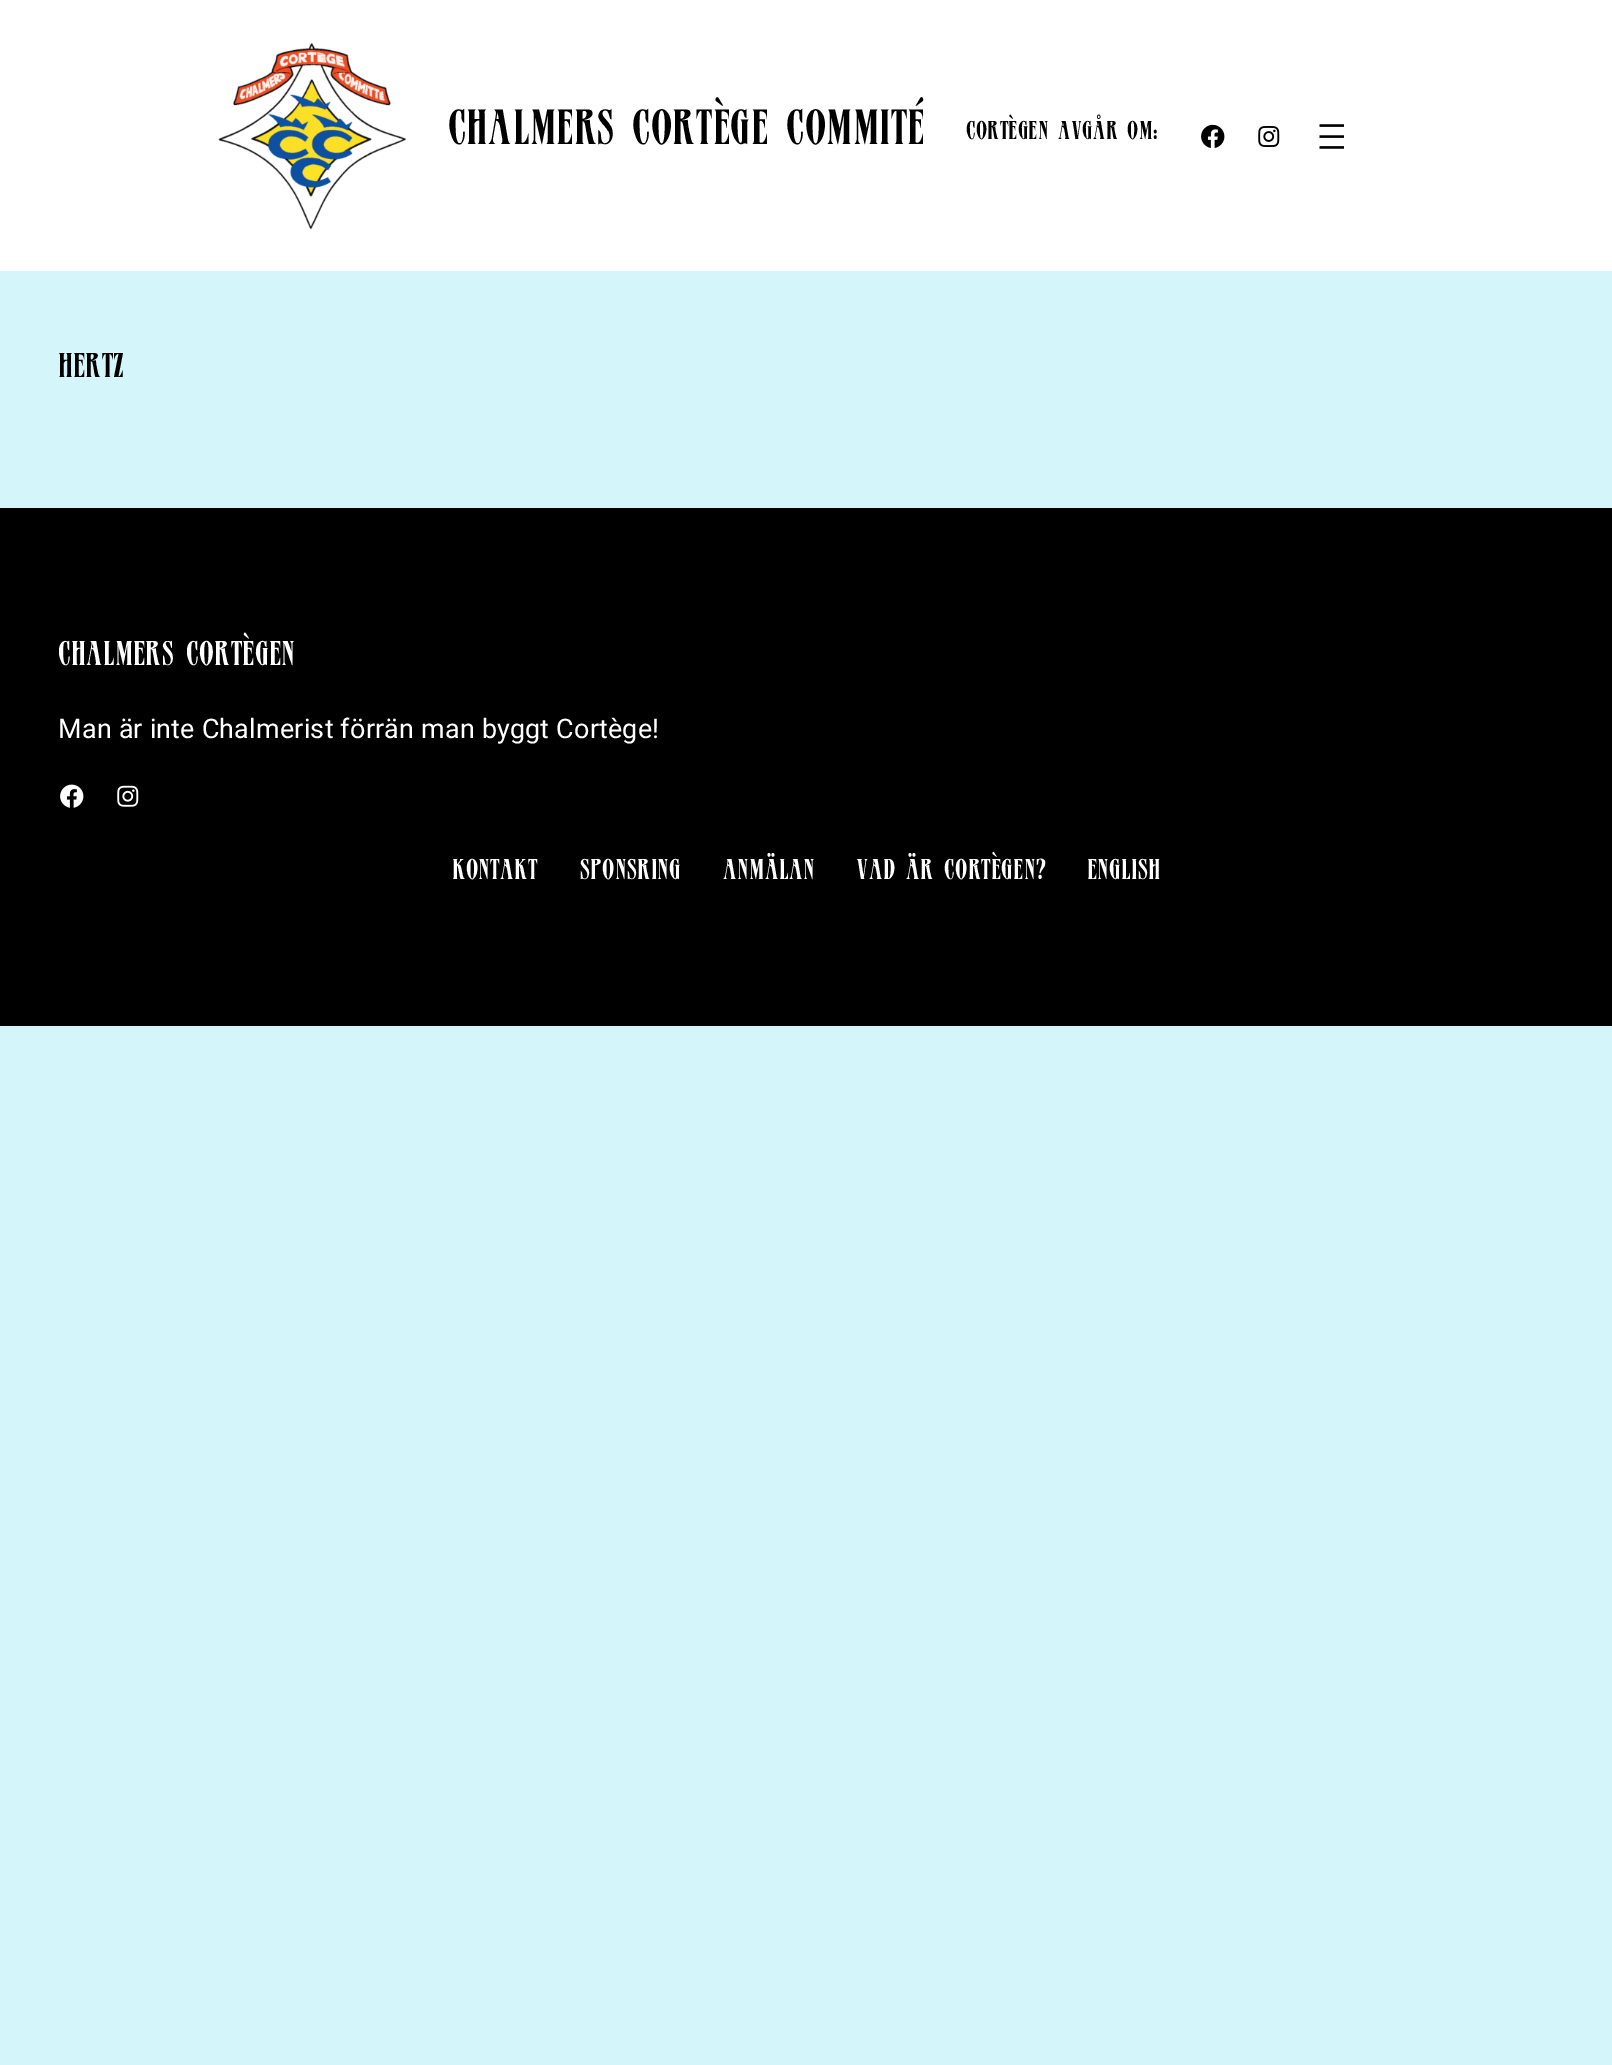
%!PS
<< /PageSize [1612 2065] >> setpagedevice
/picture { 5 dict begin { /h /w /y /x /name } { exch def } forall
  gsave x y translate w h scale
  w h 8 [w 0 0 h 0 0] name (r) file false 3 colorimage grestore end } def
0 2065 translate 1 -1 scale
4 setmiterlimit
0.831 0.961 0.976 setrgbcolor
0 0 1612 2065 rectfill
1 setgray
0 0 1612 271 rectfill
(img1.rgb) 218 42 188 188 picture
/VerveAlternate-Regular [46.5 0 0 -46.5 0 0] selectfont
0 setgray
448 144 moveto 0.2 0 (chalmers cortège commité) ashow
/VerveAlternate-Regular [24.25 0 0 -24.25 0 0] selectfont
966 139 moveto 0.2 0 (cortègen avgår om:) ashow
(img2.rgb) 1201 124 24 24 picture
(img3.rgb) 1258 126 22 21 picture
(img4.rgb) 1319 124 25 25 picture
/VerveAlternate-Regular [32.25 0 0 -32.25 0 0] selectfont
58 377 moveto 0.2 0 (hertz) ashow
0 508 1612 518 rectfill
1 setgray
58 665 moveto 0.2 0 (chalmers cortègen) ashow
/Roboto-Regular [26.95 0 0 -26.95 0 0] selectfont
58 738 moveto 0.2 0 (Man är inte Chalmerist förrän man byggt Cortège!) ashow
(img5.rgb) 60 784 24 24 picture
(img6.rgb) 117 785 22 22 picture
/VerveAlternate-Regular [26.95 0 0 -26.95 0 0] selectfont
452 879 moveto 0.2 0 (kontakt) ashow
580 879 moveto 0.2 0 (sponsring) ashow
723 879 moveto 0.2 0 (anmälan) ashow
856 879 moveto 0.2 0 (vad är cortègen?) ashow
1087 879 moveto 0.2 0 (english) ashow
showpage
